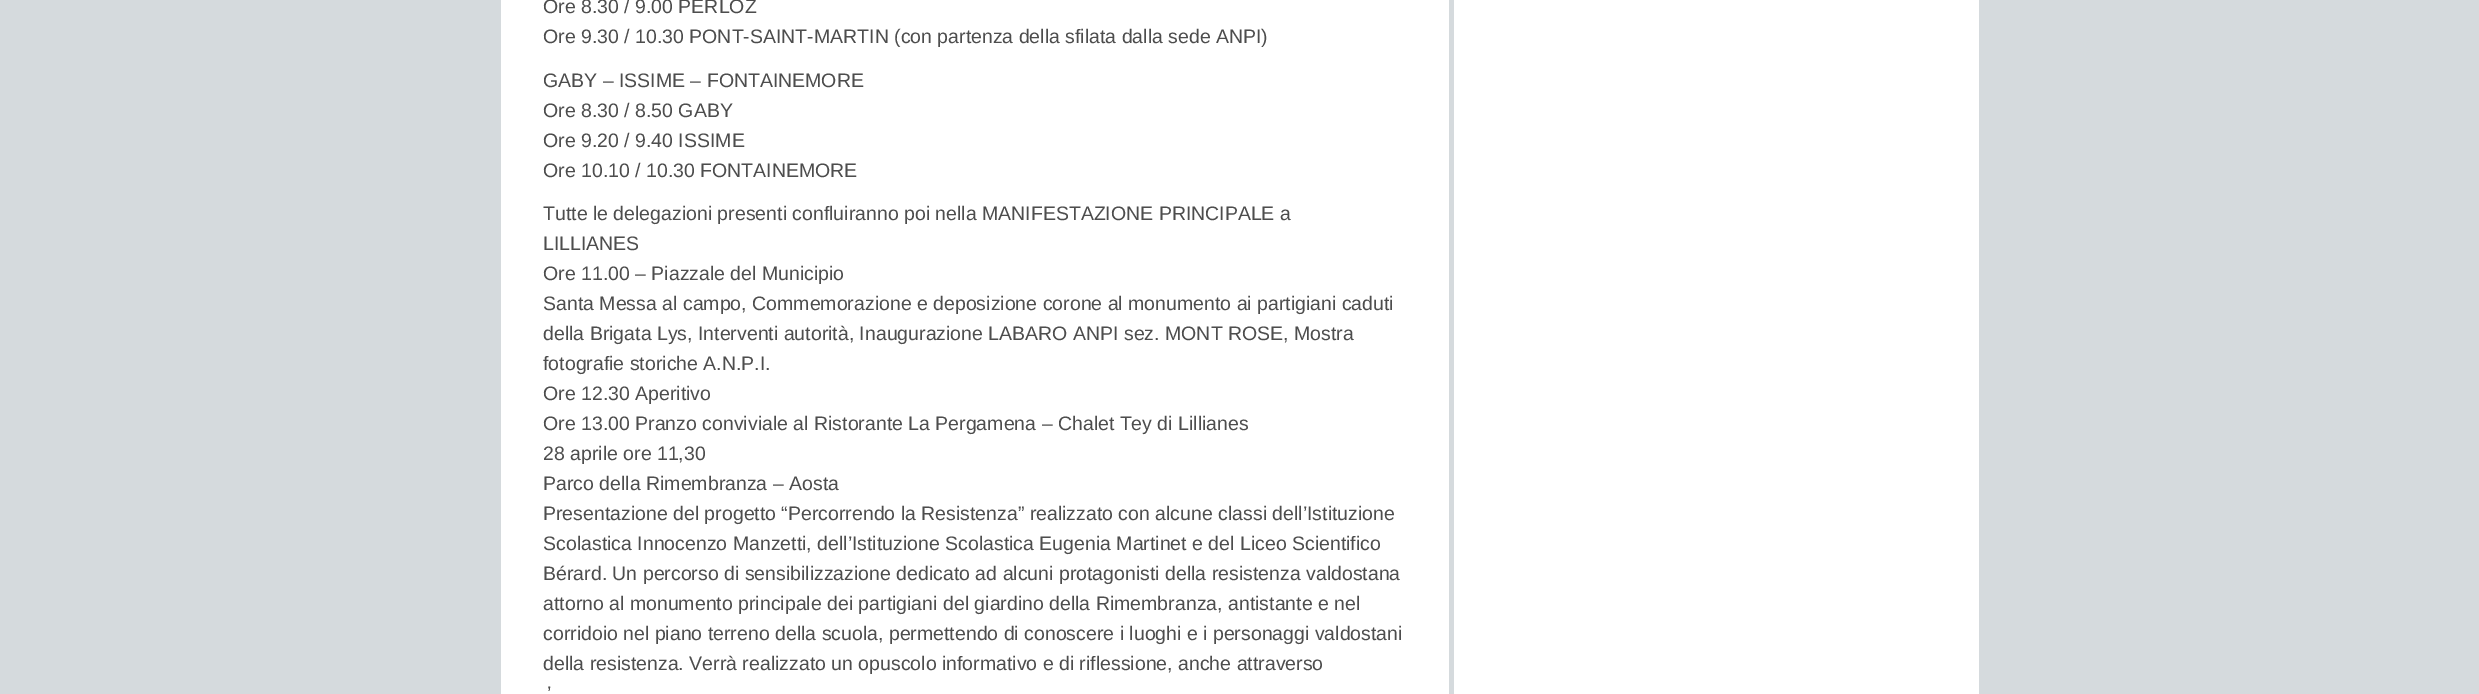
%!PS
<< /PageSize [2479 694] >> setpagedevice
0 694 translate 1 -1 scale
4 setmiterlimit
0.835 0.855 0.867 setrgbcolor
0 0 2479 694 rectfill
1 setgray
501 0 1478 694 rectfill
0.835 0.855 0.867 setrgbcolor
1449 0 5 694 rectfill
/LiberationSans-Regular [19.5 0 0 -19.5 0 0] selectfont
0.302 setgray
543 13 moveto (Ore 8.30 / 9.00 PERLOZ) show
543 43 moveto (Ore 9.30 / 10.30 PONT-SAINT-MARTIN \(con partenza della sfilata dalla sede ANPI\)) show
543 87 moveto (GABY – ISSIME – FONTAINEMORE) show
543 117 moveto (Ore 8.30 / 8.50 GABY) show
543 147 moveto (Ore 9.20 / 9.40 ISSIME) show
543 177 moveto (Ore 10.10 / 10.30 FONTAINEMORE) show
543 220 moveto (Tutte le delegazioni presenti confluiranno poi nella MANIFESTAZIONE PRINCIPALE a) show
543 250 moveto (LILLIANES) show
543 280 moveto (Ore 11.00 – Piazzale del Municipio) show
543 310 moveto (Santa Messa al campo, Commemorazione e deposizione corone al monumento ai partigiani caduti) show
543 340 moveto (della Brigata Lys, Interventi autorità, Inaugurazione LABARO ANPI sez. MONT ROSE, Mostra) show
543 370 moveto (fotografie storiche A.N.P.I.) show
543 400 moveto (Ore 12.30 Aperitivo) show
543 430 moveto (Ore 13.00 Pranzo conviviale al Ristorante La Pergamena – Chalet Tey di Lillianes) show
543 460 moveto (28 aprile ore 11,30) show
543 490 moveto (Parco della Rimembranza – Aosta) show
543 520 moveto (Presentazione del progetto “Percorrendo la Resistenza” realizzato con alcune classi dell’Istituzione) show
543 550 moveto (Scolastica Innocenzo Manzetti, dell’Istituzione Scolastica Eugenia Martinet e del Liceo Scientifico) show
543 580 moveto (Bérard. Un percorso di sensibilizzazione dedicato ad alcuni protagonisti della resistenza valdostana) show
543 610 moveto (attorno al monumento principale dei partigiani del giardino della Rimembranza, antistante e nel) show
543 640 moveto (corridoio nel piano terreno della scuola, permettendo di conoscere i luoghi e i personaggi valdostani) show
543 670 moveto (della resistenza. Verrà realizzato un opuscolo informativo e di riflessione, anche attraverso) show
547 700 moveto (’) show
showpage
